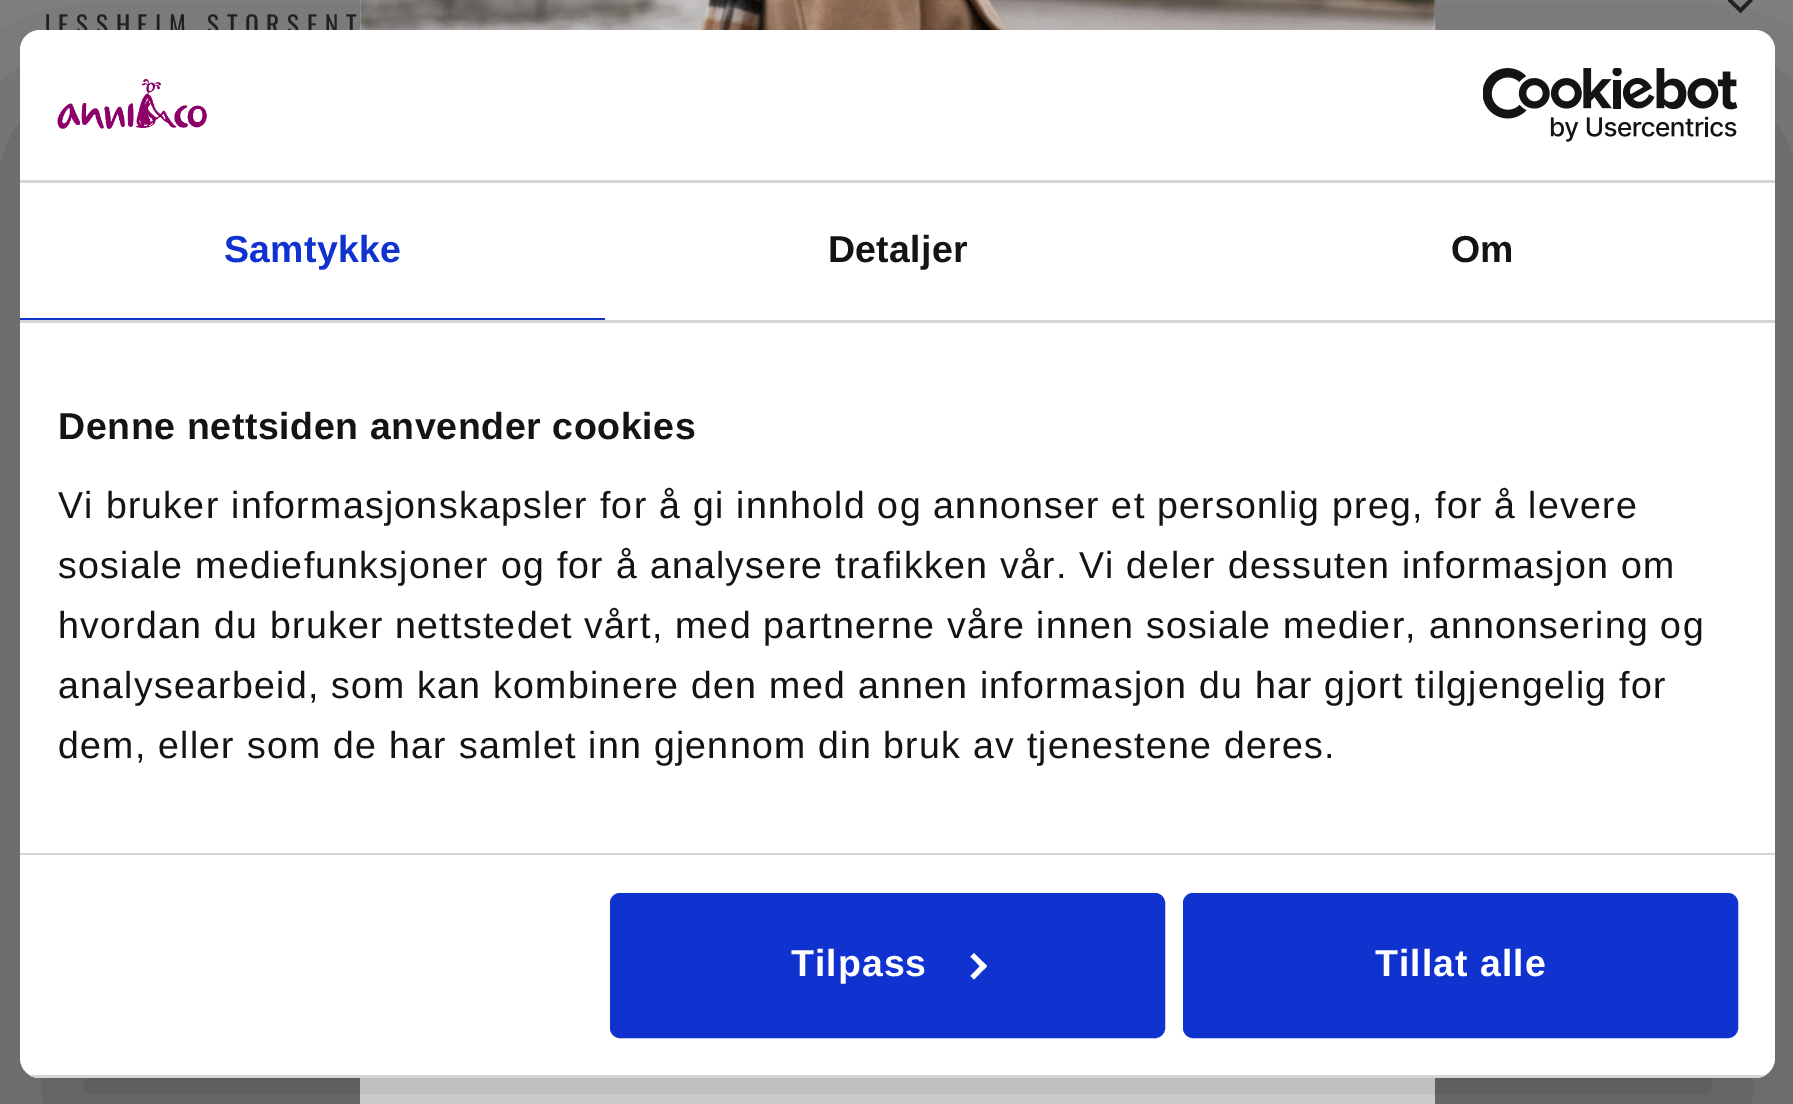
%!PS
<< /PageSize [1793 1104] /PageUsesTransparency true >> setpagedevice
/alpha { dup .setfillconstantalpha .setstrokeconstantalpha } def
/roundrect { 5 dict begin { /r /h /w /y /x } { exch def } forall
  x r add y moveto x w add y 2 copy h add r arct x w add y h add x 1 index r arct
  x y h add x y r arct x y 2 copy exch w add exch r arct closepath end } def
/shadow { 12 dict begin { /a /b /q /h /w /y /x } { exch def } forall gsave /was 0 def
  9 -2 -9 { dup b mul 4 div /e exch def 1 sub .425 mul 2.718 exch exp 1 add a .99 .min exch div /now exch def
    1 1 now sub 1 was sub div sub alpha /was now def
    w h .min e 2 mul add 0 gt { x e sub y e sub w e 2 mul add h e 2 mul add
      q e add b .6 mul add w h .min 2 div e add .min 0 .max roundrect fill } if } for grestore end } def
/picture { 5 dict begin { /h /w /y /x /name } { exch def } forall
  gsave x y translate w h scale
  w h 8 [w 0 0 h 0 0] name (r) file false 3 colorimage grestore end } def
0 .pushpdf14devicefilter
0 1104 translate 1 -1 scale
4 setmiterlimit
0.502 setgray
0 0 1793 1104 rectfill
0.133 setgray
3.6 setlinewidth
newpath 1729 -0.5 moveto 1740.5 10.5 lineto 1751.5 -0.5 lineto stroke
/Oswald-Regular [25.5 0 0 -25.5 0 0] selectfont
43 35 moveto 7.6 0 (JESSHEIM STORSENT) ashow
1 setgray
360 0 1075 1104 rectfill
(img1.rgb) 359 0 1077 30 picture
0 setgray
20 110 1755 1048 20 85 0.3 shadow
1 setgray
20 30 1755 1048 20 roundrect fill
0.839 setgray
20 180 1755 3 rectfill
(img2.rgb) 57 79 150 50 picture
(img3.rgb) 1483 68 255 74 picture
20 320 1755 3 rectfill
0.063 0.196 0.812 setrgbcolor
20 318 585 2 rectfill
/LiberationSans-Bold [37.5 0 0 -37.5 0 0] selectfont
224 262 moveto 0.25 0 (Samtykke) ashow
0.078 setgray
828 262 moveto 0.25 0 (Detaljer) ashow
1451 262 moveto 0.25 0 (Om) ashow
0.839 setgray
20 853 1755 2 rectfill
0.078 setgray
58 439 moveto 0.6 0 (Denne nettsiden anvender cookies) ashow
/LiberationSans-Regular [37.5 0 0 -37.5 0 0] selectfont
58 518 moveto 1.25 0 (Vi bruker informasjonskapsler for å gi innhold og annonser et personlig preg, for å levere) ashow
58 578 moveto 1.25 0 (sosiale mediefunksjoner og for å analysere trafikken vår. Vi deler dessuten informasjon om) ashow
58 638 moveto 1.25 0 (hvordan du bruker nettstedet vårt, med partnerne våre innen sosiale medier, annonsering og) ashow
58 698 moveto 1.25 0 (analysearbeid, som kan kombinere den med annen informasjon du har gjort tilgjengelig for) ashow
58 758 moveto 1.25 0 (dem, eller som de har samlet inn gjennom din bruk av tjenestene deres.) ashow
gsave
20 30 1755 1048 20 roundrect clip newpath
0.839 setgray
29 1075 1737 3 rectfill
grestore
0.063 0.196 0.812 setrgbcolor
612.5 895.5 550 140 7.5 roundrect gsave fill grestore
5 setlinewidth
stroke
/LiberationSans-Bold [37.5 0 0 -37.5 0 0] selectfont
1 setgray
791 976 moveto 1 0 (Tilpass) ashow
newpath 974 953 moveto 987 966 lineto 983.5 970 lineto 970.5 956.5 lineto closepath fill
newpath 983.5 962.5 moveto 987 966 lineto 974 979.5 lineto 970.5 976 lineto closepath fill
0.063 0.196 0.812 setrgbcolor
1185.5 895.5 550 140 7.5 roundrect gsave fill grestore
stroke
1 setgray
1375 976 moveto 1 0 (Tillat alle) ashow
.poppdf14devicefilter showpage
